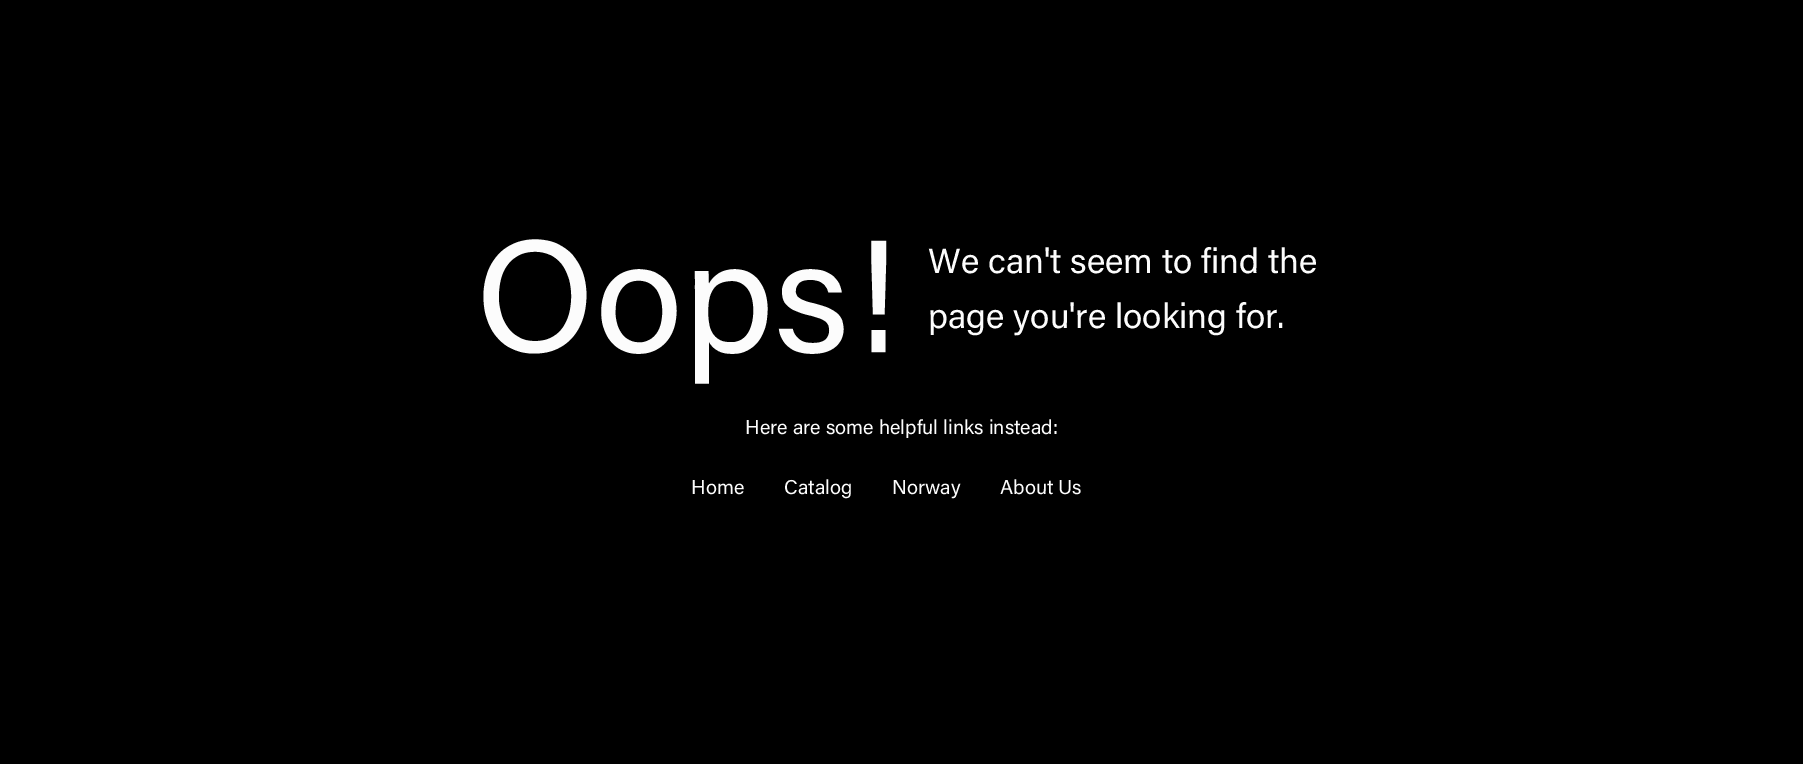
%!PS
<< /PageSize [1803 764] >> setpagedevice
0 764 translate 1 -1 scale
4 setmiterlimit
0 setgray
0 0 1803 764 rectfill
/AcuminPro-Regular [160 0 0 -160 0 0] selectfont
0.988 setgray
475 352 moveto (Oops!) show
/AcuminPro-Regular [35 0 0 -35 0 0] selectfont
928 273 moveto (We can't seem to find the) show
928 328 moveto (page you're looking for.) show
/AcuminPro-Regular [20 0 0 -20 0 0] selectfont
745 434 moveto (Here are some helpful links instead:) show
691 494 moveto (Home) show
784 494 moveto (Catalog) show
892 494 moveto (Norway) show
1000 494 moveto (About Us) show
showpage
